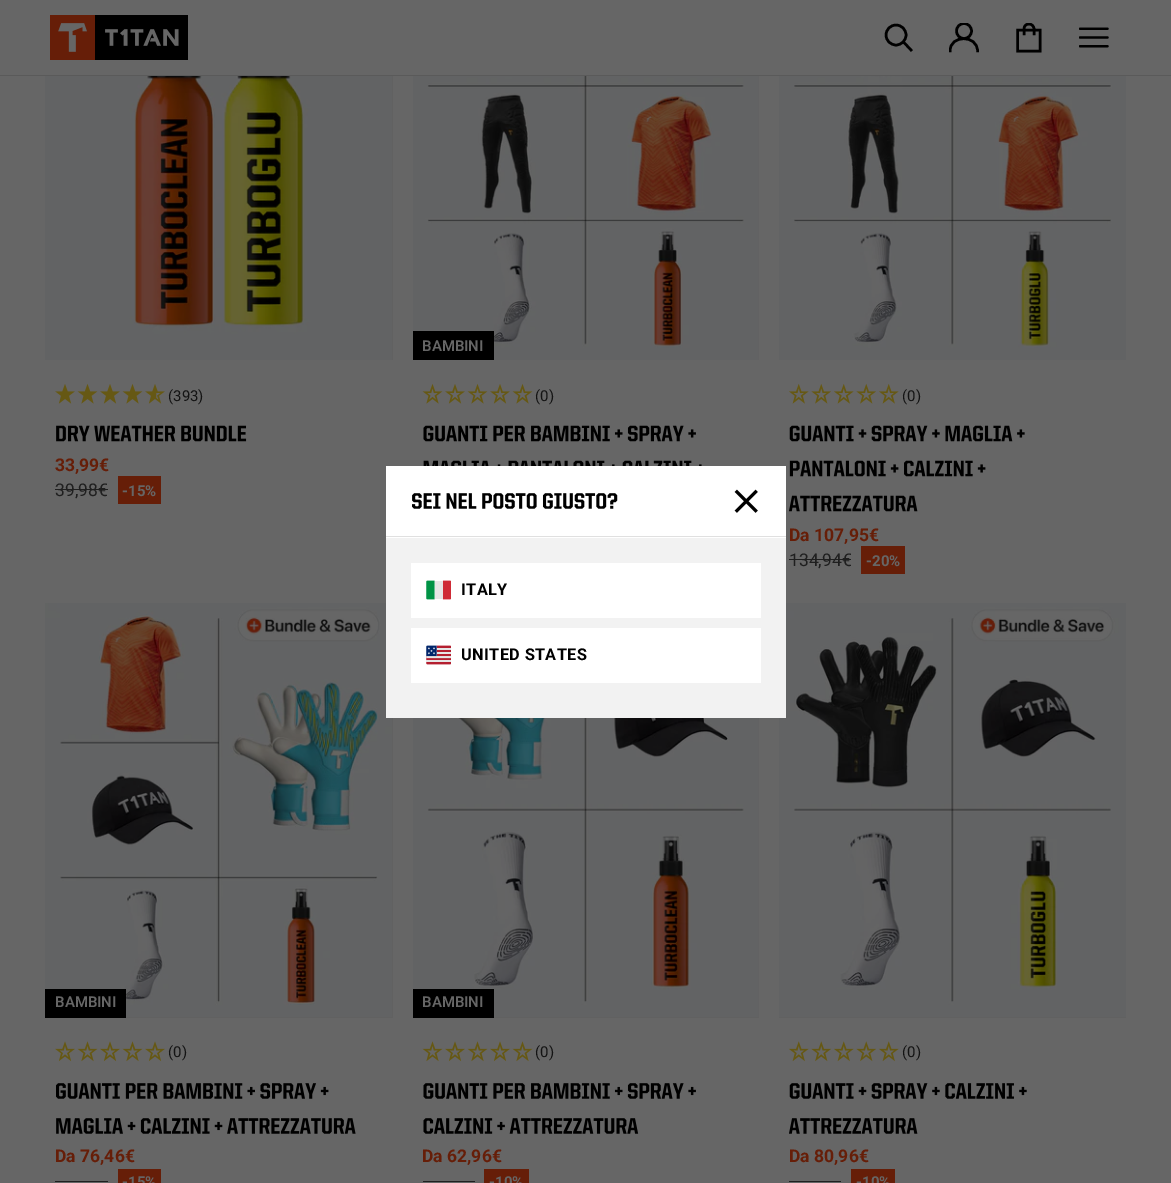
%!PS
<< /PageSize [1171 1183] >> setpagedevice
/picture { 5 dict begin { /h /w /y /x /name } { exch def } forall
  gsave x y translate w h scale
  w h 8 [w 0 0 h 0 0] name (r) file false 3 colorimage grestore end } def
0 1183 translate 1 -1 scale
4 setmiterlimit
0.4 setgray
0 0 1171 1183 rectfill
0.353 setgray
0 75 1171 1 rectfill
(img1.rgb) 50 15 138 45 picture
0 setgray
2.5 setlinewidth
2 setlinecap
newpath 911 50 moveto 903.5 42 lineto stroke
0 setlinecap
newpath 896 35 10 0 360 arc closepath stroke
gsave
949 23 30 30 rectclip
2 setlinecap
newpath 950 51 moveto 950 34.5 977.5 34.5 977.5 51 curveto stroke
0 setlinecap
newpath 964 31 7.5 0 360 arc closepath stroke
grestore
2 setlinecap
newpath 1040 51 moveto 1017.5 51 lineto 1017.5 30 lineto 1040 30 lineto closepath stroke
gsave
1014 23 30 30 rectclip
newpath 1024 34 moveto 1024 29 lineto 1024 26 1026 24 1029 24 curveto 1031.5 24 1034 26 1034 29 curveto 1034 34 lineto stroke
grestore
(img2.rgb) 1079 27 30 21 picture
0.38 setgray
758 76 1 284 rectfill
(img3.rgb) 413 76 346 284 picture
0 setgray
413 331 81 29 rectfill
/Roboto-SemiBold [15 0 0 -15 0 0] selectfont
0.4 setgray
422 351 moveto (BAMBINI) show
(img4.rgb) 422 383 21 21 picture
(img5.rgb) 445 384 20 20 picture
(img4.rgb) 467 383 21 21 picture
(img5.rgb) 490 384 20 20 picture
(img4.rgb) 512 383 21 21 picture
/Roboto-Regular [15 0 0 -15 0 0] selectfont
0.078 setgray
535 401 moveto (\(0\)) show
(img6.rgb) 423 425 273 17 picture
(img7.rgb) 423 460 279 6 picture
0.38 setgray
392 76 1 284 rectfill
(img8.rgb) 45 76 347 284 picture
(img9.rgb) 55 384 20 20 picture
(img10.rgb) 77 383 21 21 picture
(img9.rgb) 100 384 20 20 picture
(img10.rgb) 122 383 21 21 picture
(img11.rgb) 145 384 20 20 picture
0.078 setgray
168 401 moveto (\(393\)) show
(img12.rgb) 56 425 191 17 picture
/Roboto-Bold [17.5 0 0 -17.5 0 0] selectfont
0.4 0.118 0.031 setrgbcolor
55 471 moveto (33,99€) show
/Roboto-Regular [17.5 0 0 -17.5 0 0] selectfont
0.122 setgray
55 496 moveto (39,98€) show
55 489 53 1 rectfill
0.4 0.118 0.031 setrgbcolor
118 476 43 28 rectfill
/Roboto-Bold [15 0 0 -15 0 0] selectfont
0.4 setgray
122 496 moveto (-15%) show
(img13.rgb) 779 76 347 284 picture
(img14.rgb) 789 383 20 21 picture
(img15.rgb) 811 383 20 21 picture
(img14.rgb) 834 383 20 21 picture
(img15.rgb) 856 383 20 21 picture
(img14.rgb) 879 383 20 21 picture
/Roboto-Regular [15 0 0 -15 0 0] selectfont
0.078 setgray
902 401 moveto (\(0\)) show
(img16.rgb) 789 425 236 17 picture
(img17.rgb) 789 460 197 17 picture
(img18.rgb) 789 495 129 17 picture
/Roboto-Bold [17.5 0 0 -17.5 0 0] selectfont
0.4 0.118 0.031 setrgbcolor
789 541 moveto (Da 107,95€) show
/Roboto-Regular [17.5 0 0 -17.5 0 0] selectfont
0.122 setgray
789 566 moveto (134,94€) show
789 559 62 1 rectfill
0.4 0.118 0.031 setrgbcolor
861 546 44 28 rectfill
/Roboto-Bold [15 0 0 -15 0 0] selectfont
0.4 setgray
866 566 moveto (-20%) show
0.38 setgray
126 718 267 300 rectfill
(img19.rgb) 45 603 347 414 picture
0 setgray
45 989 81 29 rectfill
/Roboto-SemiBold [15 0 0 -15 0 0] selectfont
0.4 setgray
55 1007 moveto (BAMBINI) show
(img20.rgb) 55 1041 20 21 picture
(img21.rgb) 77 1041 21 21 picture
(img20.rgb) 100 1041 20 21 picture
(img21.rgb) 122 1041 21 21 picture
(img20.rgb) 145 1041 20 21 picture
/Roboto-Regular [15 0 0 -15 0 0] selectfont
0.078 setgray
168 1057 moveto (\(0\)) show
(img22.rgb) 56 1083 273 16 picture
(img23.rgb) 56 1118 300 16 picture
/Roboto-Bold [17.5 0 0 -17.5 0 0] selectfont
0.4 0.118 0.031 setrgbcolor
55 1162 moveto (Da 76,46€) show
0.122 setgray
55 1181 53 1 rectfill
0.4 0.118 0.031 setrgbcolor
118 1169 43 14 rectfill
/Roboto-Bold [15 0 0 -15 0 0] selectfont
0.4 setgray
122 1187 moveto (-15%) show
0.38 setgray
494 718 265 300 rectfill
(img24.rgb) 413 718 346 299 picture
0 setgray
413 989 81 29 rectfill
/Roboto-SemiBold [15 0 0 -15 0 0] selectfont
0.4 setgray
422 1007 moveto (BAMBINI) show
(img21.rgb) 422 1041 21 21 picture
(img20.rgb) 445 1041 20 21 picture
(img21.rgb) 467 1041 21 21 picture
(img20.rgb) 490 1041 20 21 picture
(img21.rgb) 512 1041 21 21 picture
/Roboto-Regular [15 0 0 -15 0 0] selectfont
0.078 setgray
535 1057 moveto (\(0\)) show
(img25.rgb) 423 1083 273 16 picture
(img26.rgb) 423 1118 216 16 picture
/Roboto-Bold [17.5 0 0 -17.5 0 0] selectfont
0.4 0.118 0.031 setrgbcolor
422 1162 moveto (Da 62,96€) show
0.122 setgray
423 1181 52 1 rectfill
0.4 0.118 0.031 setrgbcolor
484 1169 45 14 rectfill
/Roboto-Bold [15 0 0 -15 0 0] selectfont
0.4 setgray
489 1187 moveto (-10%) show
0.38 setgray
779 1017 347 1 rectfill
(img27.rgb) 779 603 347 414 picture
(img28.rgb) 788 1041 21 21 picture
(img29.rgb) 811 1041 21 21 picture
(img28.rgb) 833 1041 21 21 picture
(img29.rgb) 856 1041 21 21 picture
(img28.rgb) 878 1041 21 21 picture
/Roboto-Regular [15 0 0 -15 0 0] selectfont
0.078 setgray
902 1057 moveto (\(0\)) show
(img30.rgb) 789 1083 238 16 picture
(img31.rgb) 789 1118 129 16 picture
/Roboto-Bold [17.5 0 0 -17.5 0 0] selectfont
0.4 0.118 0.031 setrgbcolor
789 1162 moveto (Da 80,96€) show
0.122 setgray
789 1181 52 1 rectfill
0.4 0.118 0.031 setrgbcolor
851 1169 44 14 rectfill
/Roboto-Bold [15 0 0 -15 0 0] selectfont
0.4 setgray
856 1187 moveto (-10%) show
1 setgray
386 466 400 72 rectfill
0.878 setgray
386 536 400 1 rectfill
(img32.rgb) 412 493 206 16 picture
(img33.rgb) 734 489 24 24 picture
0.949 setgray
386 538 400 180 rectfill
1 setgray
411 563 350 55 rectfill
(img34.rgb) 426 580 25 20 picture
/Roboto-Bold [16.25 0 0 -16.25 0 0] selectfont
0 setgray
461 595 moveto 0.4 0 (ITALY) ashow
1 setgray
411 628 350 55 rectfill
(img35.rgb) 426 645 25 20 picture
0 setgray
461 660 moveto 0.4 0 (UNITED STATES) ashow
showpage
